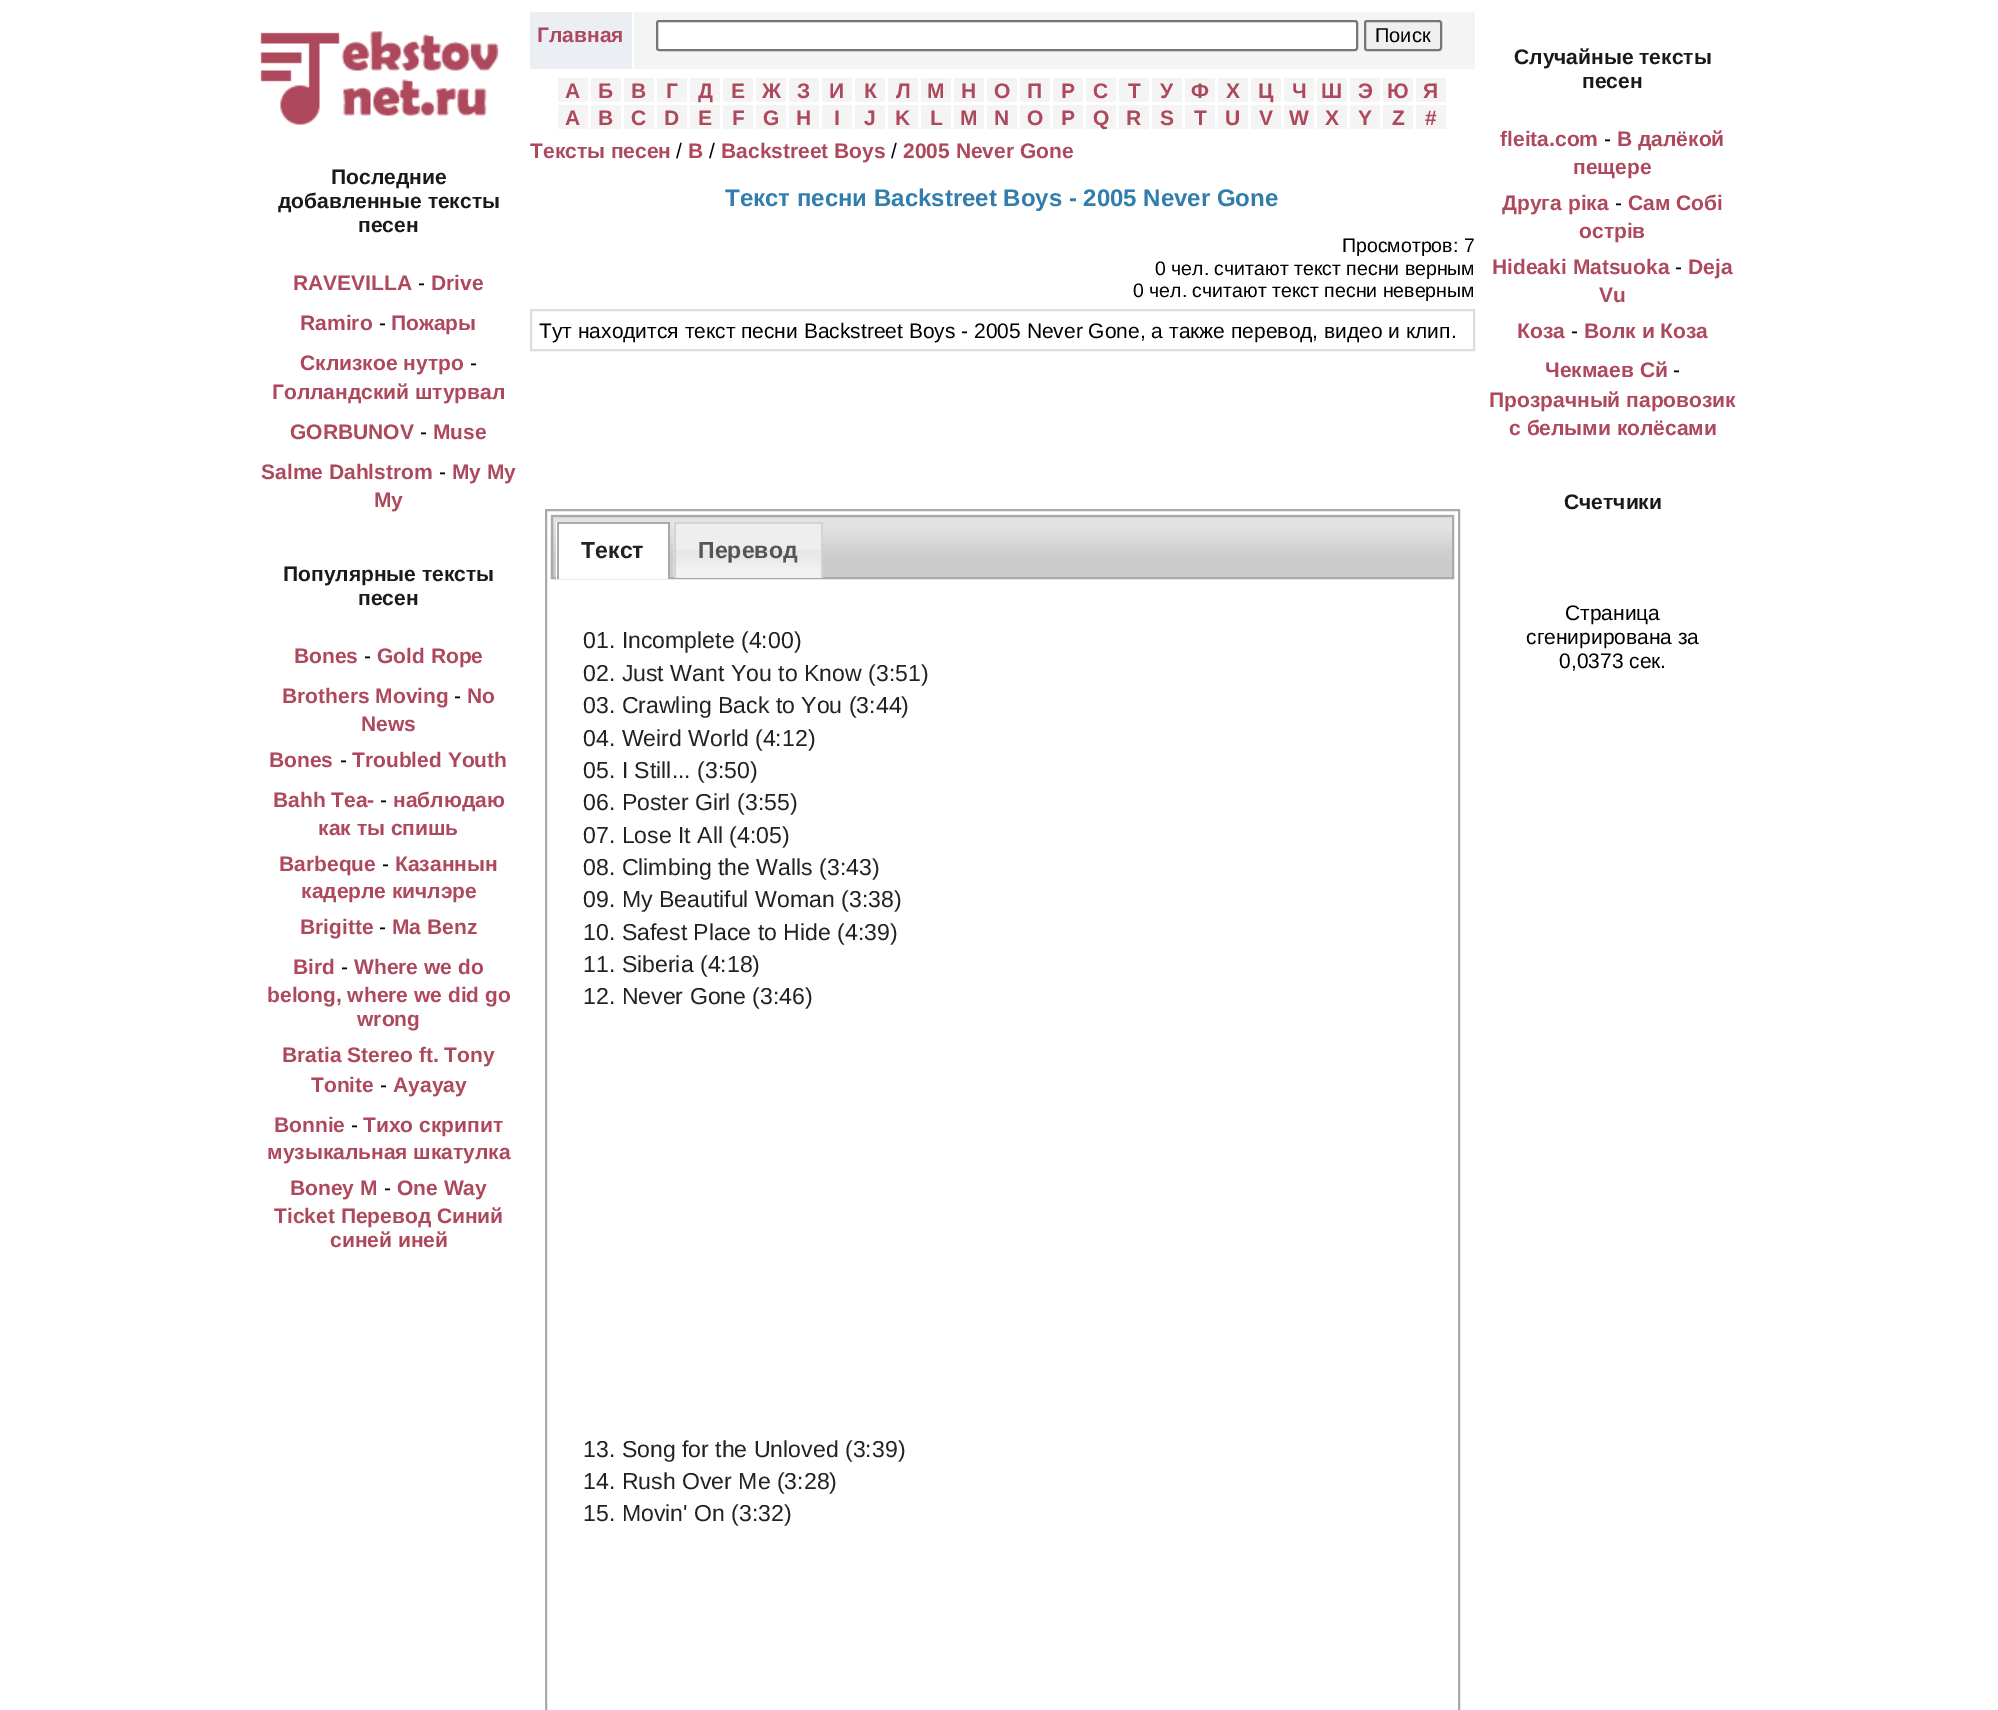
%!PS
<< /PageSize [1998 1710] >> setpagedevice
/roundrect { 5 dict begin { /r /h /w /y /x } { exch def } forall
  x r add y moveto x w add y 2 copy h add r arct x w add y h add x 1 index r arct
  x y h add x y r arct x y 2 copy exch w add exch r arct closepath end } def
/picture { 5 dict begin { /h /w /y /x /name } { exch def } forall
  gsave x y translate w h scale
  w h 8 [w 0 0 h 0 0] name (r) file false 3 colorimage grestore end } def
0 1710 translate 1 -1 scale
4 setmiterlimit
1 setgray
0 0 1998 1710 rectfill
(img1.rgb) 260 31 239 94 picture
/LiberationSans-Bold [21 0 0 -21 0 0] selectfont
0.114 0.098 0.098 setrgbcolor
331 184 moveto (Последние) show
278 208 moveto (добавленные тексты) show
358 232 moveto (песен) show
0.682 0.282 0.361 setrgbcolor
293 290 moveto (RAVEVILLA) show
/LiberationSans-Regular [21 0 0 -21 0 0] selectfont
0 setgray
418 290 moveto (-) show
/LiberationSans-Bold [21 0 0 -21 0 0] selectfont
0.682 0.282 0.361 setrgbcolor
431 290 moveto (Drive) show
300 330 moveto (Ramiro) show
/LiberationSans-Regular [21 0 0 -21 0 0] selectfont
0 setgray
379 330 moveto (-) show
/LiberationSans-Bold [21 0 0 -21 0 0] selectfont
0.682 0.282 0.361 setrgbcolor
391 330 moveto (Пожары) show
300 370 moveto (Склизкое нутро) show
/LiberationSans-Regular [21 0 0 -21 0 0] selectfont
0 setgray
470 370 moveto (-) show
/LiberationSans-Bold [21 0 0 -21 0 0] selectfont
0.682 0.282 0.361 setrgbcolor
272 399 moveto (Голландский штурвал) show
290 439 moveto (GORBUNOV) show
/LiberationSans-Regular [21 0 0 -21 0 0] selectfont
0 setgray
420 439 moveto (-) show
/LiberationSans-Bold [21 0 0 -21 0 0] selectfont
0.682 0.282 0.361 setrgbcolor
433 439 moveto (Muse) show
261 479 moveto (Salme Dahlstrom) show
/LiberationSans-Regular [21 0 0 -21 0 0] selectfont
0 setgray
439 479 moveto (-) show
/LiberationSans-Bold [21 0 0 -21 0 0] selectfont
0.682 0.282 0.361 setrgbcolor
452 479 moveto (My My) show
374 507 moveto (My) show
0.114 0.098 0.098 setrgbcolor
283 581 moveto (Популярные тексты) show
358 605 moveto (песен) show
0.682 0.282 0.361 setrgbcolor
294 663 moveto (Bones) show
/LiberationSans-Regular [21 0 0 -21 0 0] selectfont
0 setgray
364 663 moveto (-) show
/LiberationSans-Bold [21 0 0 -21 0 0] selectfont
0.682 0.282 0.361 setrgbcolor
377 663 moveto (Gold Rope) show
282 703 moveto (Brothers Moving) show
/LiberationSans-Regular [21 0 0 -21 0 0] selectfont
0 setgray
454 703 moveto (-) show
/LiberationSans-Bold [21 0 0 -21 0 0] selectfont
0.682 0.282 0.361 setrgbcolor
467 703 moveto (No) show
361 731 moveto (News) show
269 767 moveto (Bones) show
/LiberationSans-Regular [21 0 0 -21 0 0] selectfont
0 setgray
340 767 moveto (-) show
/LiberationSans-Bold [21 0 0 -21 0 0] selectfont
0.682 0.282 0.361 setrgbcolor
352 767 moveto (Troubled Youth) show
273 807 moveto (Bahh Tea-) show
/LiberationSans-Regular [21 0 0 -21 0 0] selectfont
0 setgray
380 807 moveto (-) show
/LiberationSans-Bold [21 0 0 -21 0 0] selectfont
0.682 0.282 0.361 setrgbcolor
393 807 moveto (наблюдаю) show
318 835 moveto (как ты спишь) show
279 871 moveto (Barbeque) show
/LiberationSans-Regular [21 0 0 -21 0 0] selectfont
0 setgray
382 871 moveto (-) show
/LiberationSans-Bold [21 0 0 -21 0 0] selectfont
0.682 0.282 0.361 setrgbcolor
395 871 moveto (Казаннын) show
301 898 moveto (кадерле кичлэре) show
300 934 moveto (Brigitte) show
/LiberationSans-Regular [21 0 0 -21 0 0] selectfont
0 setgray
379 934 moveto (-) show
/LiberationSans-Bold [21 0 0 -21 0 0] selectfont
0.682 0.282 0.361 setrgbcolor
392 934 moveto (Ma Benz) show
293 974 moveto (Bird) show
/LiberationSans-Regular [21 0 0 -21 0 0] selectfont
0 setgray
341 974 moveto (-) show
/LiberationSans-Bold [21 0 0 -21 0 0] selectfont
0.682 0.282 0.361 setrgbcolor
354 974 moveto (Where we do) show
267 1002 moveto (belong, where we did go) show
357 1026 moveto (wrong) show
282 1062 moveto (Bratia Stereo ft. Tony) show
311 1092 moveto (Tonite) show
/LiberationSans-Regular [21 0 0 -21 0 0] selectfont
0 setgray
380 1092 moveto (-) show
/LiberationSans-Bold [21 0 0 -21 0 0] selectfont
0.682 0.282 0.361 setrgbcolor
393 1092 moveto (Ayayay) show
274 1132 moveto (Bonnie) show
/LiberationSans-Regular [21 0 0 -21 0 0] selectfont
0 setgray
351 1132 moveto (-) show
/LiberationSans-Bold [21 0 0 -21 0 0] selectfont
0.682 0.282 0.361 setrgbcolor
363 1132 moveto (Тихо скрипит) show
267 1159 moveto (музыкальная шкатулка) show
290 1195 moveto (Boney M) show
/LiberationSans-Regular [21 0 0 -21 0 0] selectfont
0 setgray
384 1195 moveto (-) show
/LiberationSans-Bold [21 0 0 -21 0 0] selectfont
0.682 0.282 0.361 setrgbcolor
397 1195 moveto (One Way) show
274 1223 moveto (Ticket Перевод Синий) show
330 1247 moveto (синей иней) show
0.957 setgray
634 12 841 57 rectfill
0.922 0.937 0.957 setrgbcolor
530 12 102 57 rectfill
0.682 0.282 0.361 setrgbcolor
537 42 moveto (Главная) show
1 setgray
657 21 700 29 2 roundrect gsave fill grestore
0.463 setgray
2 setlinewidth
stroke
0.937 setgray
1365 21 76 29 2 roundrect gsave fill grestore
0.463 setgray
stroke
/LiberationSans-Regular [20 0 0 -20 0 0] selectfont
0 setgray
1375 42 moveto (Поиск) show
0.957 setgray
558 78 30 24 rectfill
/LiberationSans-Bold [21 0 0 -21 0 0] selectfont
0.682 0.282 0.361 setrgbcolor
565 98 moveto (А) show
0.957 setgray
591 78 30 24 rectfill
0.682 0.282 0.361 setrgbcolor
598 98 moveto (Б) show
0.957 setgray
624 78 30 24 rectfill
0.682 0.282 0.361 setrgbcolor
631 98 moveto (В) show
0.957 setgray
657 78 30 24 rectfill
0.682 0.282 0.361 setrgbcolor
666 98 moveto (Г) show
0.957 setgray
690 78 30 24 rectfill
0.682 0.282 0.361 setrgbcolor
698 98 moveto (Д) show
0.957 setgray
723 78 30 24 rectfill
0.682 0.282 0.361 setrgbcolor
731 98 moveto (Е) show
0.957 setgray
756 78 30 24 rectfill
0.682 0.282 0.361 setrgbcolor
762 98 moveto (Ж) show
0.957 setgray
789 78 30 24 rectfill
0.682 0.282 0.361 setrgbcolor
797 98 moveto (З) show
0.957 setgray
822 78 30 24 rectfill
0.682 0.282 0.361 setrgbcolor
829 98 moveto (И) show
0.957 setgray
855 78 30 24 rectfill
0.682 0.282 0.361 setrgbcolor
864 98 moveto (К) show
0.957 setgray
888 78 30 24 rectfill
0.682 0.282 0.361 setrgbcolor
896 98 moveto (Л) show
0.957 setgray
921 78 30 24 rectfill
0.682 0.282 0.361 setrgbcolor
927 98 moveto (М) show
0.957 setgray
954 78 30 24 rectfill
0.682 0.282 0.361 setrgbcolor
961 98 moveto (Н) show
0.957 setgray
987 78 30 24 rectfill
0.682 0.282 0.361 setrgbcolor
994 98 moveto (О) show
0.957 setgray
1020 78 30 24 rectfill
0.682 0.282 0.361 setrgbcolor
1027 98 moveto (П) show
0.957 setgray
1053 78 30 24 rectfill
0.682 0.282 0.361 setrgbcolor
1061 98 moveto (Р) show
0.957 setgray
1086 78 30 24 rectfill
0.682 0.282 0.361 setrgbcolor
1093 98 moveto (С) show
0.957 setgray
1119 78 30 24 rectfill
0.682 0.282 0.361 setrgbcolor
1128 98 moveto (Т) show
0.957 setgray
1152 78 30 24 rectfill
0.682 0.282 0.361 setrgbcolor
1160 98 moveto (У) show
0.957 setgray
1185 78 30 24 rectfill
0.682 0.282 0.361 setrgbcolor
1191 98 moveto (Ф) show
0.957 setgray
1218 78 30 24 rectfill
0.682 0.282 0.361 setrgbcolor
1226 98 moveto (Х) show
0.957 setgray
1251 78 30 24 rectfill
0.682 0.282 0.361 setrgbcolor
1258 98 moveto (Ц) show
0.957 setgray
1284 78 30 24 rectfill
0.682 0.282 0.361 setrgbcolor
1292 98 moveto (Ч) show
0.957 setgray
1317 78 30 24 rectfill
0.682 0.282 0.361 setrgbcolor
1321 98 moveto (Ш) show
0.957 setgray
1350 78 30 24 rectfill
0.682 0.282 0.361 setrgbcolor
1358 98 moveto (Э) show
0.957 setgray
1383 78 30 24 rectfill
0.682 0.282 0.361 setrgbcolor
1387 98 moveto (Ю) show
0.957 setgray
1416 78 30 24 rectfill
0.682 0.282 0.361 setrgbcolor
1423 98 moveto (Я) show
0.957 setgray
558 105 30 24 rectfill
0.682 0.282 0.361 setrgbcolor
565 125 moveto (A) show
0.957 setgray
591 105 30 24 rectfill
0.682 0.282 0.361 setrgbcolor
598 125 moveto (B) show
0.957 setgray
624 105 30 24 rectfill
0.682 0.282 0.361 setrgbcolor
631 125 moveto (C) show
0.957 setgray
657 105 30 24 rectfill
0.682 0.282 0.361 setrgbcolor
664 125 moveto (D) show
0.957 setgray
690 105 30 24 rectfill
0.682 0.282 0.361 setrgbcolor
698 125 moveto (E) show
0.957 setgray
723 105 30 24 rectfill
0.682 0.282 0.361 setrgbcolor
732 125 moveto (F) show
0.957 setgray
756 105 30 24 rectfill
0.682 0.282 0.361 setrgbcolor
763 125 moveto (G) show
0.957 setgray
789 105 30 24 rectfill
0.682 0.282 0.361 setrgbcolor
796 125 moveto (H) show
0.957 setgray
822 105 30 24 rectfill
0.682 0.282 0.361 setrgbcolor
834 125 moveto (I) show
0.957 setgray
855 105 30 24 rectfill
0.682 0.282 0.361 setrgbcolor
864 125 moveto (J) show
0.957 setgray
888 105 30 24 rectfill
0.682 0.282 0.361 setrgbcolor
895 125 moveto (K) show
0.957 setgray
921 105 30 24 rectfill
0.682 0.282 0.361 setrgbcolor
930 125 moveto (L) show
0.957 setgray
954 105 30 24 rectfill
0.682 0.282 0.361 setrgbcolor
960 125 moveto (M) show
0.957 setgray
987 105 30 24 rectfill
0.682 0.282 0.361 setrgbcolor
994 125 moveto (N) show
0.957 setgray
1020 105 30 24 rectfill
0.682 0.282 0.361 setrgbcolor
1027 125 moveto (O) show
0.957 setgray
1053 105 30 24 rectfill
0.682 0.282 0.361 setrgbcolor
1061 125 moveto (P) show
0.957 setgray
1086 105 30 24 rectfill
0.682 0.282 0.361 setrgbcolor
1093 125 moveto (Q) show
0.957 setgray
1119 105 30 24 rectfill
0.682 0.282 0.361 setrgbcolor
1126 125 moveto (R) show
0.957 setgray
1152 105 30 24 rectfill
0.682 0.282 0.361 setrgbcolor
1160 125 moveto (S) show
0.957 setgray
1185 105 30 24 rectfill
0.682 0.282 0.361 setrgbcolor
1194 125 moveto (T) show
0.957 setgray
1218 105 30 24 rectfill
0.682 0.282 0.361 setrgbcolor
1225 125 moveto (U) show
0.957 setgray
1251 105 30 24 rectfill
0.682 0.282 0.361 setrgbcolor
1259 125 moveto (V) show
0.957 setgray
1284 105 30 24 rectfill
0.682 0.282 0.361 setrgbcolor
1289 125 moveto (W) show
0.957 setgray
1317 105 30 24 rectfill
0.682 0.282 0.361 setrgbcolor
1325 125 moveto (X) show
0.957 setgray
1350 105 30 24 rectfill
0.682 0.282 0.361 setrgbcolor
1358 125 moveto (Y) show
0.957 setgray
1383 105 30 24 rectfill
0.682 0.282 0.361 setrgbcolor
1392 125 moveto (Z) show
0.957 setgray
1416 105 30 24 rectfill
0.682 0.282 0.361 setrgbcolor
1425 125 moveto (#) show
530 158 moveto (Тексты песен) show
/LiberationSans-Regular [21 0 0 -21 0 0] selectfont
0 setgray
676 158 moveto (/) show
/LiberationSans-Bold [21 0 0 -21 0 0] selectfont
0.682 0.282 0.361 setrgbcolor
688 158 moveto (B) show
/LiberationSans-Regular [21 0 0 -21 0 0] selectfont
0 setgray
709 158 moveto (/) show
/LiberationSans-Bold [21 0 0 -21 0 0] selectfont
0.682 0.282 0.361 setrgbcolor
721 158 moveto (Backstreet Boys) show
/LiberationSans-Regular [21 0 0 -21 0 0] selectfont
0 setgray
891 158 moveto (/) show
/LiberationSans-Bold [21 0 0 -21 0 0] selectfont
0.682 0.282 0.361 setrgbcolor
903 158 moveto (2005 Never Gone) show
/LiberationSans-Bold [24 0 0 -24 0 0] selectfont
0.192 0.494 0.675 setrgbcolor
725 206 moveto (Текст песни Backstreet Boys - 2005 Never Gone) show
/LiberationSans-Regular [19.5 0 0 -19.5 0 0] selectfont
0 setgray
1342 252 moveto (Просмотров: 7) show
1155 275 moveto (0 чел. считают текст песни верным) show
1133 297 moveto (0 чел. считают текст песни неверным) show
0.867 setgray
531 310 943 40 rectstroke
/LiberationSans-Regular [21 0 0 -21 0 0] selectfont
0 setgray
539 338 moveto (Тут находится текст песни Backstreet Boys - 2005 Never Gone, а также перевод, видео и клип.) show
0.667 setgray
546 510 913 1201 rectstroke
(img2.rgb) 550 514 904 65 picture
552 516 901 62 rectstroke
1 setgray
556 522 112 57 rectfill
0.667 setgray
557 522 112 2 rectfill
668 522 2 57 rectfill
557 522 2 57 rectfill
/LiberationSans-Bold [23.1 0 0 -23.1 0 0] selectfont
0.133 setgray
581 558 moveto (Текст) show
0.902 setgray
676 577 145 1 rectfill
(img3.rgb) 673 522 148 56 picture
0.827 setgray
674 522 148 2 rectfill
821 522 2 56 rectfill
674 522 2 56 rectfill
0.333 setgray
698 558 moveto (Перевод) show
/LiberationSans-Regular [23.1 0 0 -23.1 0 0] selectfont
0.133 setgray
583 648 moveto (01. Incomplete \(4:00\)) show
583 681 moveto (02. Just Want You to Know \(3:51\)) show
583 713 moveto (03. Crawling Back to You \(3:44\)) show
583 746 moveto (04. Weird World \(4:12\)) show
583 778 moveto (05. I Still... \(3:50\)) show
583 810 moveto (06. Poster Girl \(3:55\)) show
583 843 moveto (07. Lose It All \(4:05\)) show
583 875 moveto (08. Climbing the Walls \(3:43\)) show
583 907 moveto (09. My Beautiful Woman \(3:38\)) show
583 940 moveto (10. Safest Place to Hide \(4:39\)) show
583 972 moveto (11. Siberia \(4:18\)) show
583 1004 moveto (12. Never Gone \(3:46\)) show
583 1457 moveto (13. Song for the Unloved \(3:39\)) show
583 1489 moveto (14. Rush Over Me \(3:28\)) show
583 1521 moveto (15. Movin' On \(3:32\)) show
/LiberationSans-Bold [21 0 0 -21 0 0] selectfont
0.114 0.098 0.098 setrgbcolor
1514 64 moveto (Случайные тексты) show
1582 88 moveto (песен) show
0.682 0.282 0.361 setrgbcolor
1500 146 moveto (fleita.com) show
/LiberationSans-Regular [21 0 0 -21 0 0] selectfont
0 setgray
1604 146 moveto (-) show
/LiberationSans-Bold [21 0 0 -21 0 0] selectfont
0.682 0.282 0.361 setrgbcolor
1617 146 moveto (В далёкой) show
1573 174 moveto (пещере) show
1502 210 moveto (Друга ріка) show
/LiberationSans-Regular [21 0 0 -21 0 0] selectfont
0 setgray
1615 210 moveto (-) show
/LiberationSans-Bold [21 0 0 -21 0 0] selectfont
0.682 0.282 0.361 setrgbcolor
1628 210 moveto (Сам Собі) show
1579 238 moveto (острів) show
1492 274 moveto (Hideaki Matsuoka) show
/LiberationSans-Regular [21 0 0 -21 0 0] selectfont
0 setgray
1675 274 moveto (-) show
/LiberationSans-Bold [21 0 0 -21 0 0] selectfont
0.682 0.282 0.361 setrgbcolor
1688 274 moveto (Deja) show
1599 302 moveto (Vu) show
1517 338 moveto (Коза) show
/LiberationSans-Regular [21 0 0 -21 0 0] selectfont
0 setgray
1571 338 moveto (-) show
/LiberationSans-Bold [21 0 0 -21 0 0] selectfont
0.682 0.282 0.361 setrgbcolor
1584 338 moveto (Волк и Коза) show
1545 377 moveto (Чекмаев Сй) show
/LiberationSans-Regular [21 0 0 -21 0 0] selectfont
0 setgray
1673 377 moveto (-) show
/LiberationSans-Bold [21 0 0 -21 0 0] selectfont
0.682 0.282 0.361 setrgbcolor
1489 407 moveto (Прозрачный паровозик) show
1509 435 moveto (с белыми колёсами) show
0.114 0.098 0.098 setrgbcolor
1564 509 moveto (Счетчики) show
/LiberationSans-Regular [21 0 0 -21 0 0] selectfont
0 setgray
1565 620 moveto (Страница) show
1526 644 moveto (сгенирирована за) show
1559 668 moveto (0,0373 сек.) show
showpage
